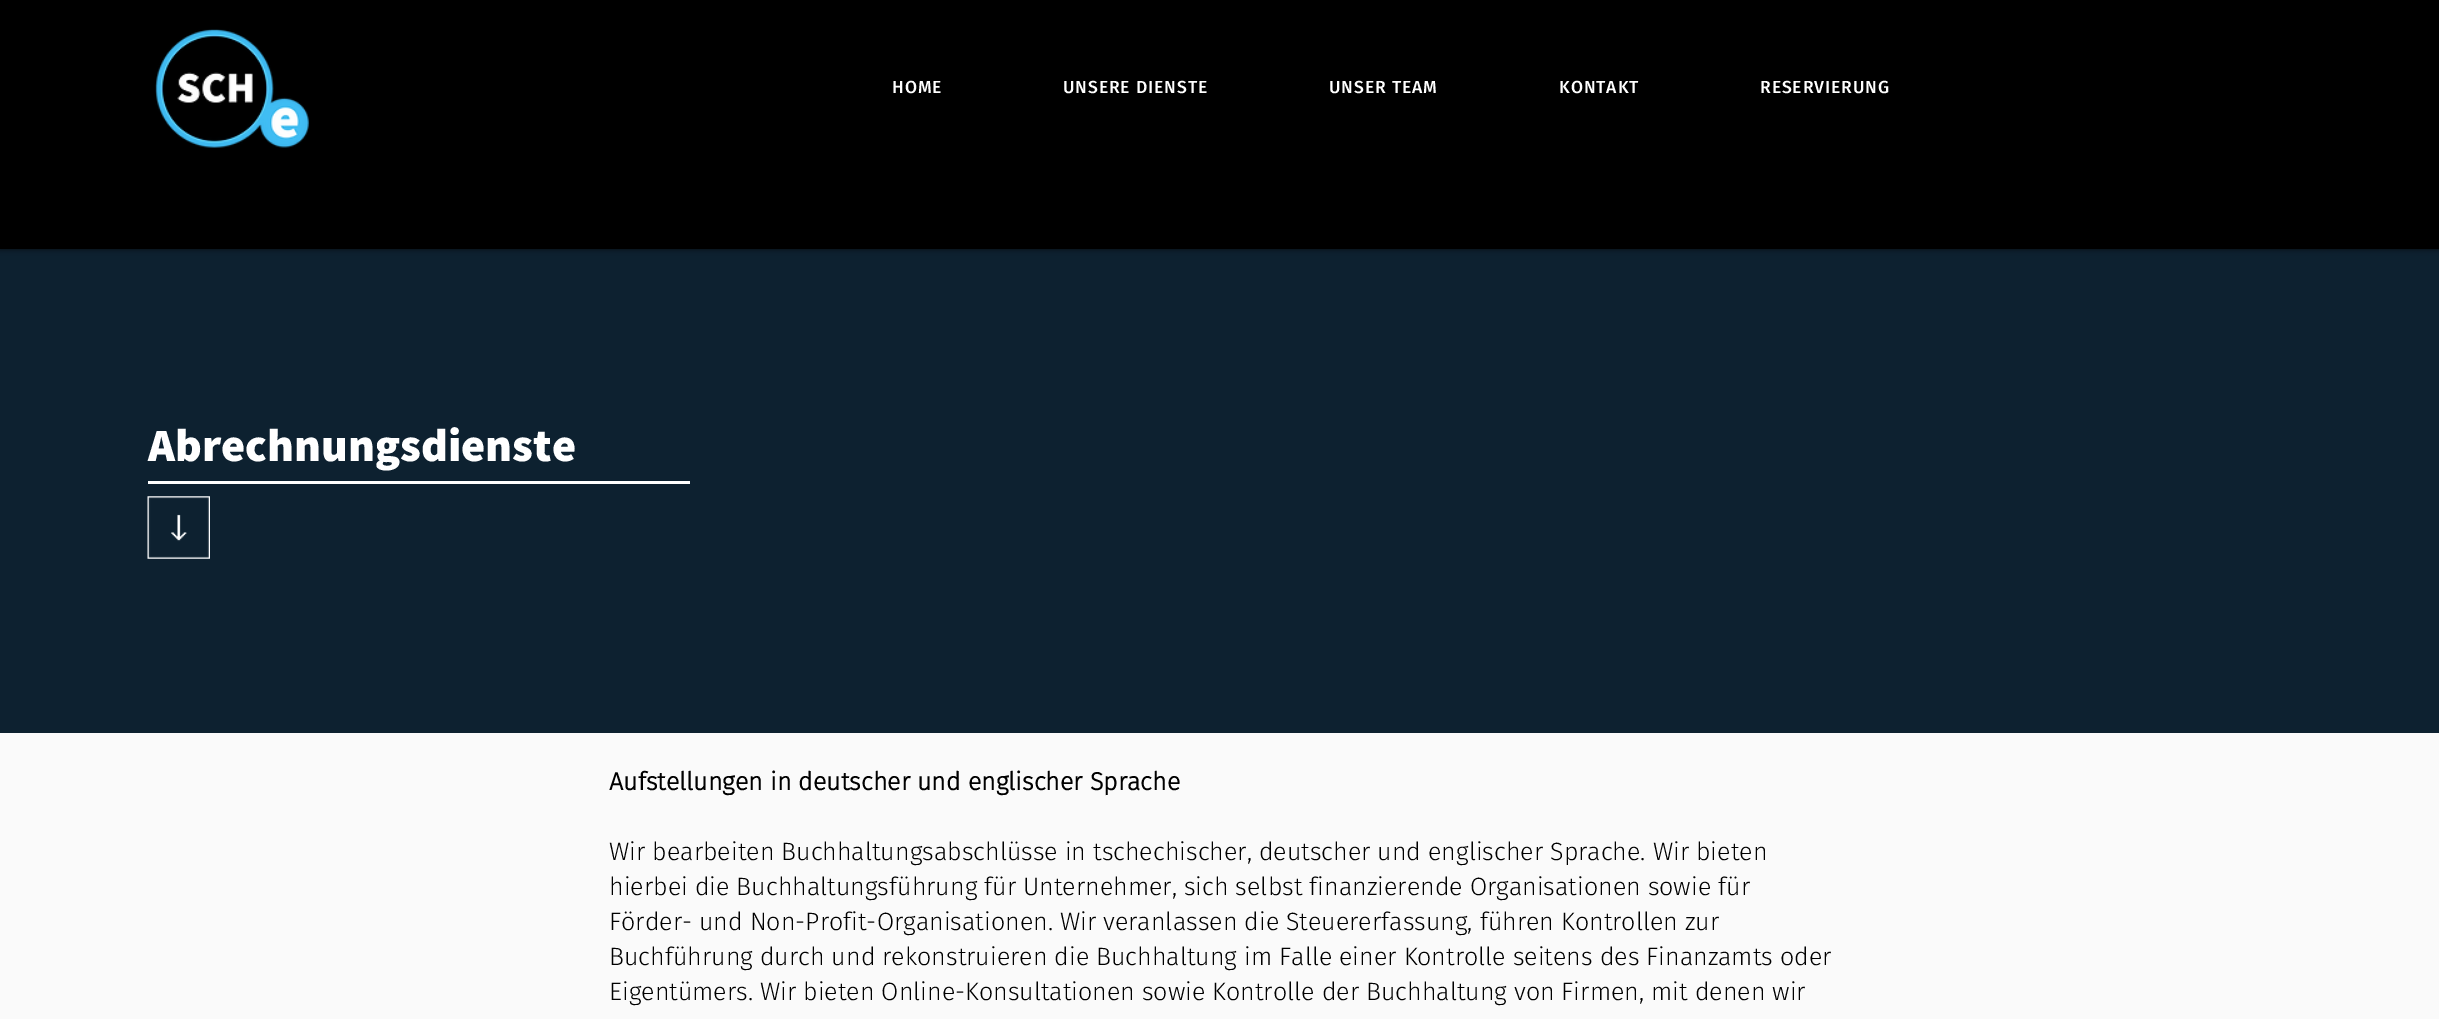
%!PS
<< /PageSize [2439 1019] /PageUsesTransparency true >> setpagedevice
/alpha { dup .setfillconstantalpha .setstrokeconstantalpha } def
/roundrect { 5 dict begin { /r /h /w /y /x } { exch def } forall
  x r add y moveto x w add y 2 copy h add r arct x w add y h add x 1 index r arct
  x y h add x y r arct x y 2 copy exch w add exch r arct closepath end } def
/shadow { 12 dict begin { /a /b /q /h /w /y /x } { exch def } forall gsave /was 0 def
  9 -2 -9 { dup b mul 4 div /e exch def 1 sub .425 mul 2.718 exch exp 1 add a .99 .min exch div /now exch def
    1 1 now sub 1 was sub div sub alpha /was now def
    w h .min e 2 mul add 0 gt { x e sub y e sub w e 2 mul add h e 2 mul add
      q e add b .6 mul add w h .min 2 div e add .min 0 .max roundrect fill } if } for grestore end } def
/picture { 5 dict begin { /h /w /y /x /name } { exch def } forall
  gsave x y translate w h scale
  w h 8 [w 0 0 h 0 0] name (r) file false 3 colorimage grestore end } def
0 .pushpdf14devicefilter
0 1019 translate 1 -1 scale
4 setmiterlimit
0.98 setgray
0 0 2439 1019 rectfill
0.051 0.129 0.188 setrgbcolor
0 249 2439 484 rectfill
0 setgray
0 0 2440 249 0 3 0.7 shadow
0 0 2439 249 rectfill
(img1.rgb) 155 29 154 119 picture
/FiraSans-Medium [17.5 0 0 -17.5 0 0] selectfont
1 setgray
892 93 moveto 0.9 0 (HOME) ashow
1063 93 moveto 0.9 0 (UNSERE DIENSTE) ashow
1329 93 moveto 0.9 0 (UNSER TEAM) ashow
1559 93 moveto 0.9 0 (KONTAKT) ashow
1760 93 moveto 0.9 0 (RESERVIERUNG) ashow
/Assistant-ExtraBold [46.25 0 0 -46.25 0 0] selectfont
148 461 moveto (Abrechnungsdienste) show
148 481 542 3 rectfill
(img2.rgb) 147 496 63 63 picture
/FiraSans-Bold [25 0 0 -25 0 0] selectfont
0 setgray
609 790 moveto (Aufstellungen in deutscher und englischer Sprache) show
/FiraSans-Light [25 0 0 -25 0 0] selectfont
609 860 moveto (Wir bearbeiten Buchhaltungsabschlüsse in tschechischer, deutscher und englischer Sprache. Wir bieten) show
609 895 moveto (hierbei die Buchhaltungsführung für Unternehmer, sich selbst finanzierende Organisationen sowie für) show
609 930 moveto (Förder- und Non-Profit-Organisationen. Wir veranlassen die Steuererfassung, führen Kontrollen zur) show
609 965 moveto (Buchführung durch und rekonstruieren die Buchhaltung im Falle einer Kontrolle seitens des Finanzamts oder) show
609 1000 moveto (Eigentümers. Wir bieten Online-Konsultationen sowie Kontrolle der Buchhaltung von Firmen, mit denen wir) show
.poppdf14devicefilter showpage
